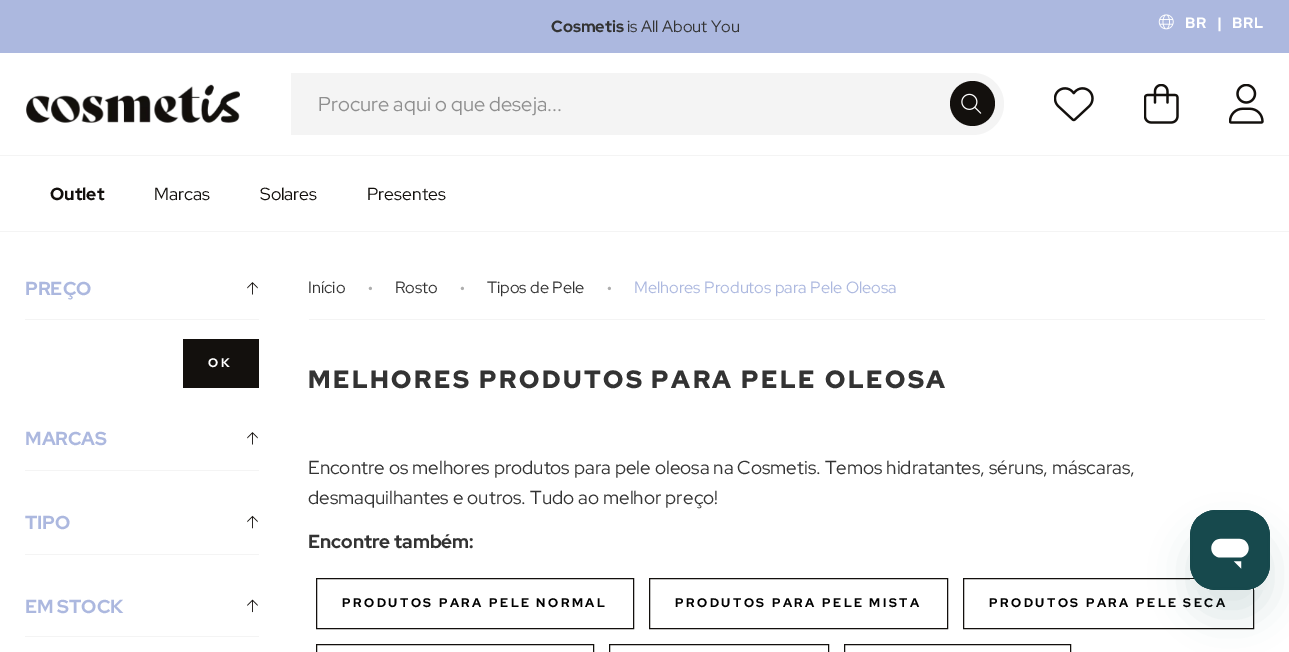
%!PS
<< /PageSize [1289 652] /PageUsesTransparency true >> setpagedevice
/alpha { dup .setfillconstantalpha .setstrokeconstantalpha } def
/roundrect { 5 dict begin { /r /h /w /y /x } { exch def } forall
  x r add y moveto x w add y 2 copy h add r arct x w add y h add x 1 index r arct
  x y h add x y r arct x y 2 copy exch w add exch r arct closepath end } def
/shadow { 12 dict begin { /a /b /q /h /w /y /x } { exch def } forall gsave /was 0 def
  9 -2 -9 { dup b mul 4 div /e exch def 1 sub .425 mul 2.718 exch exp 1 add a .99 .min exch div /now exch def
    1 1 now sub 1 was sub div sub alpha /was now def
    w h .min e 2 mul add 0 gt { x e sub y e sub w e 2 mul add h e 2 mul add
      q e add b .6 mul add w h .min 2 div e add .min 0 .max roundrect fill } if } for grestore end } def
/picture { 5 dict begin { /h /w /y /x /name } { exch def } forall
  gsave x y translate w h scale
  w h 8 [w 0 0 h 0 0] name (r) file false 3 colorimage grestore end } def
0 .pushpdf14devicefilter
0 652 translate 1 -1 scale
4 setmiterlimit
1 setgray
0 0 1289 652 rectfill
0.675 0.722 0.875 setrgbcolor
0 0 1289 53 rectfill
/RedHatDisplay-Bold [16.25 0 0 -16.25 0 0] selectfont
0.2 setgray
551 32 moveto (Cosmetis) show
/RedHatDisplay-Regular [16.25 0 0 -16.25 0 0] selectfont
627 32 moveto (is All About You) show
(img1.rgb) 1158 14 16 16 picture
/RedHatDisplay-Bold [15 0 0 -15 0 0] selectfont
1 setgray
1185 28 moveto 0.5 0 (BR) ashow
1217 28 moveto 0.5 0 (|) ashow
1232 28 moveto 0.5 0 (BRL) ashow
0.957 setgray
0 155 1289 1 rectfill
(img2.rgb) 26 84 214 39 picture
newpath 291 73 moveto 973 73 lineto 990 73 1004 87 1004 104 curveto 1004 121 990 135 973 135 curveto 291 135 lineto closepath fill
/RedHatDisplay-Regular [20 0 0 -20 0 0] selectfont
0.561 setgray
318 111 moveto (Procure aqui o que deseja...) show
0.075 0.063 0.051 setrgbcolor
newpath 972.5 103.5 22.5 0 360 arc closepath fill
(img3.rgb) 961 93 21 21 picture
(img4.rgb) 1054 87 40 35 picture
(img5.rgb) 1144 84 35 40 picture
(img6.rgb) 1229 84 35 40 picture
0.957 setgray
0 231 1289 1 rectfill
/RedHatDisplay-Bold [17.5 0 0 -17.5 0 0] selectfont
0.075 0.063 0.051 setrgbcolor
50 200 moveto (Outlet) show
/RedHatDisplay-Regular [17.5 0 0 -17.5 0 0] selectfont
154 200 moveto (Marcas) show
260 200 moveto (Solares) show
367 200 moveto (Presentes) show
0.957 setgray
25 319 234 1 rectfill
/RedHatDisplay-Bold [18.75 0 0 -18.75 0 0] selectfont
0.675 0.722 0.875 setrgbcolor
25 295 moveto (PREÇO) show
(img7.rgb) 247 282 11 13 picture
0.075 0.063 0.051 setrgbcolor
183 339 76 49 rectfill
/RedHatDisplay-Bold [12.5 0 0 -12.5 0 0] selectfont
1 setgray
208 367 moveto 2.5 0 (OK) ashow
0.957 setgray
25 470 234 1 rectfill
/RedHatDisplay-Bold [18.75 0 0 -18.75 0 0] selectfont
0.675 0.722 0.875 setrgbcolor
25 445 moveto (MARCAS) show
(img7.rgb) 247 432 11 13 picture
0.957 setgray
25 554 234 1 rectfill
0.675 0.722 0.875 setrgbcolor
25 529 moveto (TIPO) show
(img8.rgb) 247 515 11 14 picture
0.957 setgray
25 636 234 1 rectfill
0.675 0.722 0.875 setrgbcolor
25 613 moveto (EM STOCK) show
(img9.rgb) 247 599 11 14 picture
0.957 setgray
309 319 956 1 rectfill
/RedHatDisplay-Regular [16.25 0 0 -16.25 0 0] selectfont
0.2 setgray
308 293 moveto (Início) show
/LiberationSerif-Regular [14 0 0 -14 0 0] selectfont
0.682 setgray
368 293 moveto (•) show
/RedHatDisplay-Regular [16.25 0 0 -16.25 0 0] selectfont
0.2 setgray
395 293 moveto (Rosto) show
/LiberationSerif-Regular [14 0 0 -14 0 0] selectfont
0.682 setgray
460 293 moveto (•) show
/RedHatDisplay-Regular [16.25 0 0 -16.25 0 0] selectfont
0.2 setgray
487 293 moveto (Tipos de Pele) show
/LiberationSerif-Regular [14 0 0 -14 0 0] selectfont
0.682 setgray
607 293 moveto (•) show
/RedHatDisplay-Regular [16.25 0 0 -16.25 0 0] selectfont
0.675 0.722 0.875 setrgbcolor
634 293 moveto (Melhores Produtos para Pele Oleosa) show
/RedHatDisplay-Black [25 0 0 -25 0 0] selectfont
0.2 setgray
308 388 moveto 2.5 0 (MELHORES PRODUTOS PARA PELE OLEOSA) ashow
/RedHatDisplay-Regular [18.75 0 0 -18.75 0 0] selectfont
308 474 moveto (Encontre os melhores produtos para pele oleosa na Cosmetis. Temos hidratantes, séruns, máscaras,) show
308 504 moveto (desmaquilhantes e outros. Tudo ao melhor preço!) show
/RedHatDisplay-Bold [18.75 0 0 -18.75 0 0] selectfont
308 548 moveto (Encontre também:) show
0.075 0.063 0.051 setrgbcolor
316.5 578.5 317 50 rectstroke
/RedHatDisplay-Bold [12.5 0 0 -12.5 0 0] selectfont
0 setgray
342 607 moveto 2.5 0 (PRODUTOS PARA PELE NORMAL) ashow
0.075 0.063 0.051 setrgbcolor
649.5 578.5 298 50 rectstroke
0 setgray
675 607 moveto 2.5 0 (PRODUTOS PARA PELE MISTA) ashow
0.075 0.063 0.051 setrgbcolor
963.5 578.5 290 50 rectstroke
0 setgray
989 607 moveto 2.5 0 (PRODUTOS PARA PELE SECA) ashow
0.075 0.063 0.051 setrgbcolor
316.5 644.5 277 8 rectstroke
609.5 644.5 219 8 rectstroke
844.5 644.5 226 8 rectstroke
0.09 0.286 0.302 setrgbcolor
1190 535 80 80 25 19 0.15 shadow
(img10.rgb) 1190 510 80 80 picture
.poppdf14devicefilter showpage
